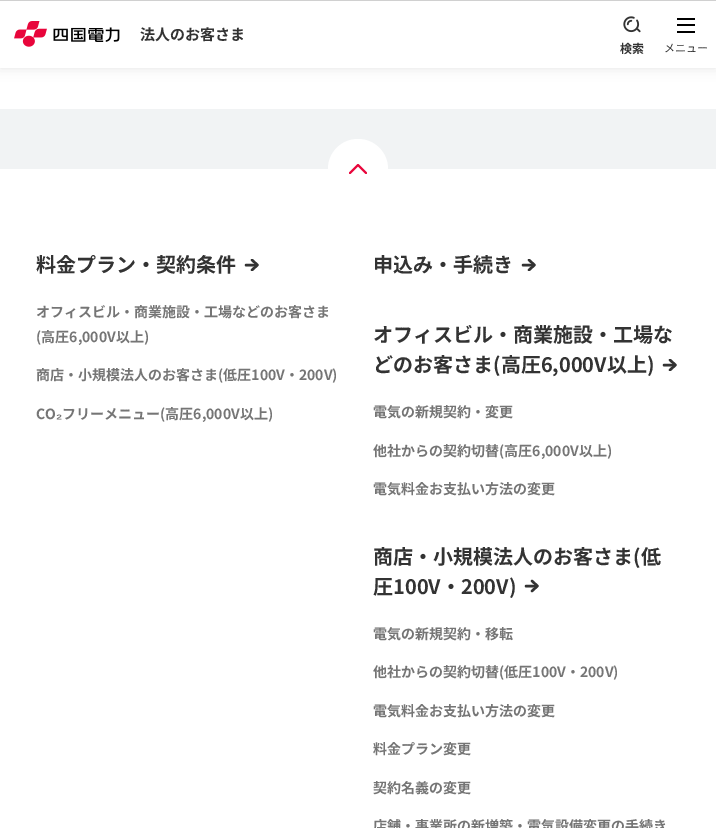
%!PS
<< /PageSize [716 828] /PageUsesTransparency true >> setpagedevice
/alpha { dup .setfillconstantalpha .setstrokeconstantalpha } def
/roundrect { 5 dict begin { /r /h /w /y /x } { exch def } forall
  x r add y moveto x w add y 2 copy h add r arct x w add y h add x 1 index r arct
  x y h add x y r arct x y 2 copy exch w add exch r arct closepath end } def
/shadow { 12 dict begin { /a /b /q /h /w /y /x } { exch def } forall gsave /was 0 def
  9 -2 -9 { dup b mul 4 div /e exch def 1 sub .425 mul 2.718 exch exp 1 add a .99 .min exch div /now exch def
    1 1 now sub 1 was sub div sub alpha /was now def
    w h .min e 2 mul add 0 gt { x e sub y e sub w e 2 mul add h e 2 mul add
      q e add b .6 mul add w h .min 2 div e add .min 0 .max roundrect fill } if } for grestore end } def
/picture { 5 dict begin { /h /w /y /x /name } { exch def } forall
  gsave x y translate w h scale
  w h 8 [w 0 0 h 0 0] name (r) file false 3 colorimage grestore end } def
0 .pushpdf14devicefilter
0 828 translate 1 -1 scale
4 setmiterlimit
1 setgray
0 0 716 828 rectfill
0.443 setgray
0 0 716 68 0 6 0.2 shadow
1 setgray
0 1 716 67 rectfill
0.816 setgray
0 0 716 1 rectfill
(img1.rgb) 14 21 106 26 picture
/NotoSansJP-Bold [15 0 0 -15 0 0] selectfont
0.2 setgray
140 40 moveto (法人のお客さま) show
(img2.rgb) 623 16 18 17 picture
/NotoSansJP-Bold [12 0 0 -12 0 0] selectfont
620 53 moveto (検索) show
0 setgray
677 18 18 2 rectfill
677 24 18 2 rectfill
677 31 18 2 rectfill
/NotoSansJP-Regular [11 0 0 -11 0 0] selectfont
0.2 setgray
664 52 moveto (メニュー) show
0.945 0.953 0.957 setrgbcolor
0 109 716 60 rectfill
1 setgray
newpath 358 169 30 0 360 arc closepath fill
0.91 0.02 0.231 setrgbcolor
2 setlinewidth
1 setlinecap
1 setlinejoin
newpath 350 173 moveto 358 165 lineto 366 173 lineto stroke
/NotoSansJP-Bold [20 0 0 -20 0 0] selectfont
0.2 setgray
36 272 moveto (料金プラン・契約条件) show
gsave
245 259 14 12 rectclip
2.4 setlinewidth
newpath 252 260 moveto 257.5 265 lineto 252 270 lineto stroke
grestore
2.4 setlinewidth
0 setlinejoin
newpath 256.5 265 moveto 246 265 lineto stroke
/NotoSansJP-Bold [14 0 0 -14 0 0] selectfont
0.459 setgray
36 317 moveto (オフィスビル・商業施設・工場などのお客さま) show
36 342 moveto (\(高圧6,000V以上\)) show
36 380 moveto (商店・小規模法人のお客さま\(低圧100V・200V\)) show
36 419 moveto (CO) show
/LiberationSans-Bold [14 0 0 -14 0 0] selectfont
56 419 moveto (₂) show
/NotoSansJP-Bold [14 0 0 -14 0 0] selectfont
62 419 moveto (フリーメニュー\(高圧6,000V以上\)) show
/NotoSansJP-Bold [20 0 0 -20 0 0] selectfont
0.2 setgray
373 272 moveto (申込み・手続き) show
gsave
522 259 14 12 rectclip
1 setlinejoin
newpath 529 260 moveto 534.5 265 lineto 529 270 lineto stroke
grestore
newpath 533.5 265 moveto 523 265 lineto stroke
373 342 moveto (オフィスビル・商業施設・工場な) show
373 372 moveto (どのお客さま\(高圧6,000V以上\)) show
gsave
663 359 15 12 rectclip
1 setlinejoin
newpath 670 360 moveto 675.5 365 lineto 670 370 lineto stroke
grestore
newpath 674.5 365 moveto 664 365 lineto stroke
/NotoSansJP-Bold [14 0 0 -14 0 0] selectfont
0.459 setgray
373 417 moveto (電気の新規契約・変更) show
373 456 moveto (他社からの契約切替\(高圧6,000V以上\)) show
373 494 moveto (電気料金お支払い方法の変更) show
/NotoSansJP-Bold [20 0 0 -20 0 0] selectfont
0.2 setgray
373 564 moveto (商店・小規模法人のお客さま\(低) show
373 594 moveto (圧100V・200V\)) show
1 setlinejoin
newpath 532 581 moveto 537.5 586 lineto 532 591 lineto stroke
0 setlinejoin
newpath 536.5 586 moveto 526 586 lineto stroke
/NotoSansJP-Bold [14 0 0 -14 0 0] selectfont
0.459 setgray
373 639 moveto (電気の新規契約・移転) show
373 677 moveto (他社からの契約切替\(低圧100V・200V\)) show
373 716 moveto (電気料金お支払い方法の変更) show
373 754 moveto (料金プラン変更) show
373 793 moveto (契約名義の変更) show
373 831 moveto (店舗・事業所の新増築・電気設備変更の手続き) show
.poppdf14devicefilter showpage
